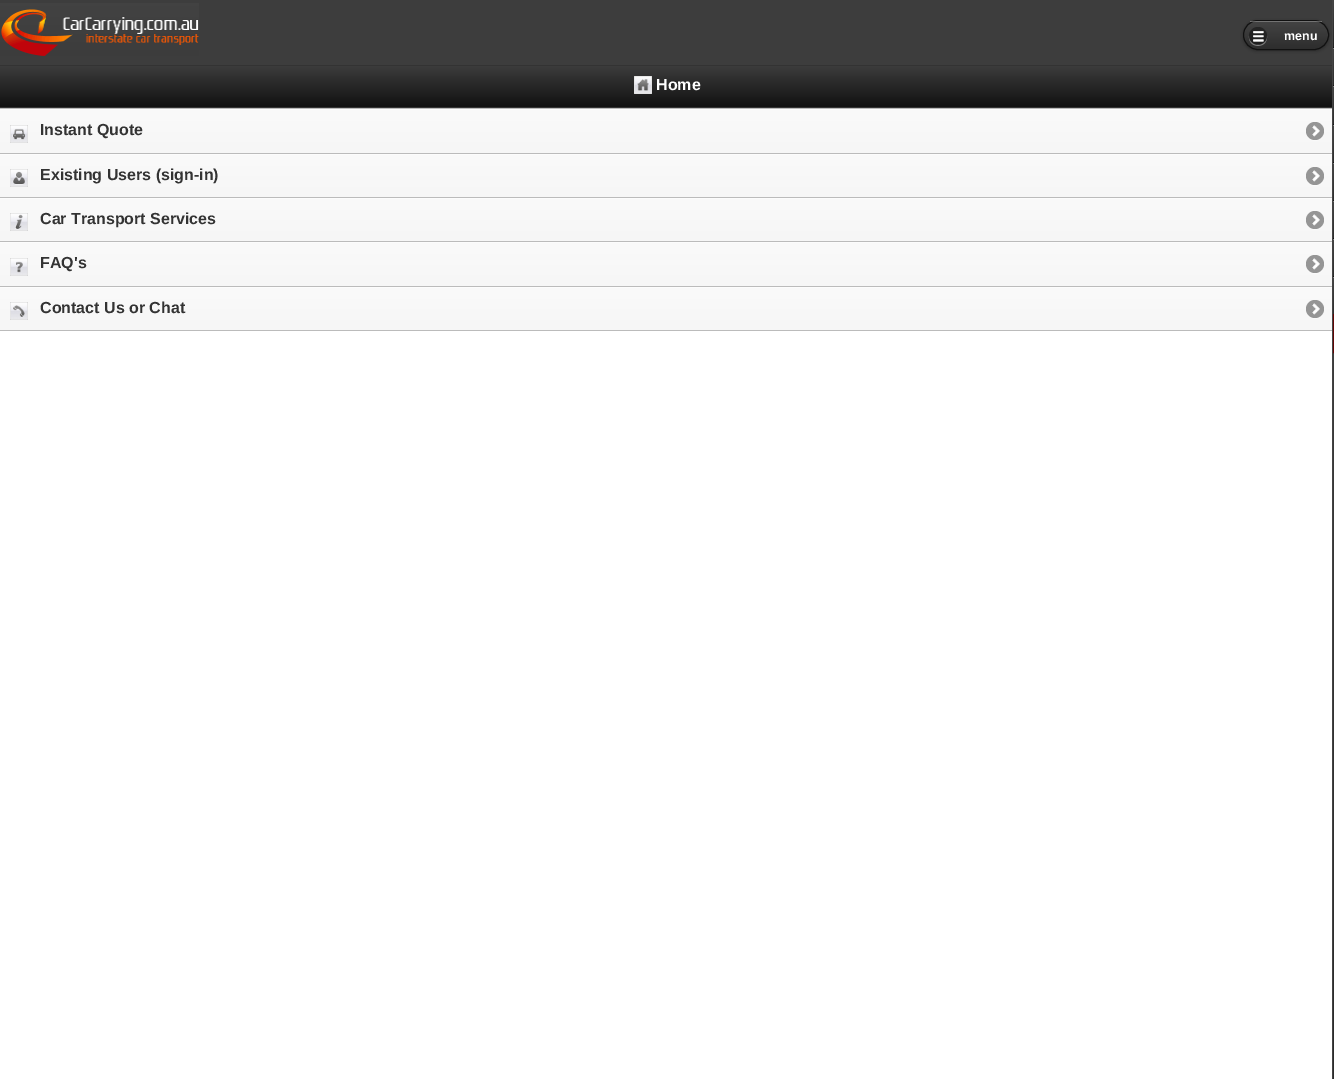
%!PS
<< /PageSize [1334 1079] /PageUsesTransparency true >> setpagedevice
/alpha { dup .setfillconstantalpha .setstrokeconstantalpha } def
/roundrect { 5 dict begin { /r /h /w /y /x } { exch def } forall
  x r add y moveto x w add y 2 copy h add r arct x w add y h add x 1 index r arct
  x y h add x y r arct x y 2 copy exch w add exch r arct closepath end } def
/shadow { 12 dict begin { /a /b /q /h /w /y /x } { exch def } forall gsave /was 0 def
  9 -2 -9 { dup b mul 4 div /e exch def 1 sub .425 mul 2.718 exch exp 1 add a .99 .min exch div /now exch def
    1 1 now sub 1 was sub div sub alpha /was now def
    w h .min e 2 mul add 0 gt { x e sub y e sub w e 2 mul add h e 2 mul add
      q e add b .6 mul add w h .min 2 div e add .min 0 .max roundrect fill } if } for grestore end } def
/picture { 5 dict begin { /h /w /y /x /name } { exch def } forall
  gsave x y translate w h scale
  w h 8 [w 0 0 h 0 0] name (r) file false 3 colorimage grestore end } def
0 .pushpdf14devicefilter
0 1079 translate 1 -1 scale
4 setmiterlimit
1 setgray
0 0 1334 1079 rectfill
0.239 setgray
0 0 1332 65 rectfill
(img1.rgb) 0 3 199 53 picture
0 setgray
1243 21 86 30 15 2 0.3 shadow
gsave 1244 21 84 28 14 roundrect clip newpath
<< /ShadingType 2 /ColorSpace /DeviceRGB /Coords [1286 21 1286 49] /Extend [true true] /Function << /FunctionType 2 /Domain [0 1] /C0 [0.267 0.267 0.267] /C1 [0.176 0.176 0.176] /N 1 >> >> shfill grestore
0.067 setgray
1243.5 20.5 85 29 14.5 roundrect stroke
0.3 alpha
1 setgray
1250 21 72 1 rectfill
0.4 alpha
newpath 1267 36.5 moveto 1266.5 47.5 1249.5 47.5 1249 36.5 curveto 1248.5 49 1267.5 49 1267 36.5 curveto closepath fill
0 setgray
newpath 1258 36 9 0 360 arc closepath fill
1 alpha
(img2.rgb) 1253 31 11 11 picture
/LiberationSans-Bold [12.5 0 0 -12.5 0 0] selectfont
1 setgray
1284 40 moveto (menu) show
0.2 setgray
0 65 1334 1 rectfill
0 107 1334 1 rectfill
0.733 setgray
0 108 1334 1 rectfill
0.988 setgray
0 109 1334 1 rectfill
0.733 setgray
0 153 1334 1 rectfill
0.988 setgray
0 154 1334 1 rectfill
0.733 setgray
0 197 1334 1 rectfill
0.988 setgray
0 198 1334 1 rectfill
0.733 setgray
0 241 1334 1 rectfill
0.988 setgray
0 242 1334 1 rectfill
0.733 setgray
0 286 1334 1 rectfill
0 330 1334 1 rectfill
0.988 setgray
0 287 1334 1 rectfill
gsave newpath 1333 1 moveto 1334 1 lineto 1334 1079 lineto 1333 1079 lineto closepath clip newpath
<< /ShadingType 2 /ColorSpace /DeviceRGB /Coords [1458 1 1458 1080] /Extend [true true] /Function << /FunctionType 2 /Domain [0 1] /C0 [0.267 0.267 0.267] /C1 [0.133 0.133 0.133] /N 1 >> >> shfill grestore
0.267 setgray
1332.5 0.5 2 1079 rectstroke
gsave newpath 1333 2 moveto 1334 2 lineto 1334 47 lineto 1333 47 lineto closepath clip newpath
<< /ShadingType 2 /ColorSpace /DeviceRGB /Coords [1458 2 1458 47] /Extend [true true] /Function << /FunctionType 2 /Domain [0 1] /C0 [0.267 0.267 0.267] /C1 [0.133 0.133 0.133] /N 1 >> >> shfill grestore
gsave newpath 1333 48 moveto 1334 48 lineto 1334 85 lineto 1333 85 lineto closepath clip newpath
<< /ShadingType 2 /ColorSpace /DeviceRGB /Coords [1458 48 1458 85] /Extend [true true] /Function << /FunctionType 2 /Domain [0 1] /C0 [0.267 0.267 0.267] /C1 [0.176 0.176 0.176] /N 1 >> >> shfill grestore
0.067 setgray
1333 47 1 1 rectfill
0.486 setgray
1333 48 1 1 rectfill
gsave newpath 1333 86 moveto 1334 86 lineto 1334 124 lineto 1333 124 lineto closepath clip newpath
<< /ShadingType 2 /ColorSpace /DeviceRGB /Coords [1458 86 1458 124] /Extend [true true] /Function << /FunctionType 2 /Domain [0 1] /C0 [0.267 0.267 0.267] /C1 [0.176 0.176 0.176] /N 1 >> >> shfill grestore
0.067 setgray
1333 85 1 1 rectfill
0.486 setgray
1333 86 1 1 rectfill
gsave newpath 1333 125 moveto 1334 125 lineto 1334 162 lineto 1333 162 lineto closepath clip newpath
<< /ShadingType 2 /ColorSpace /DeviceRGB /Coords [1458 125 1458 162] /Extend [true true] /Function << /FunctionType 2 /Domain [0 1] /C0 [0.267 0.267 0.267] /C1 [0.176 0.176 0.176] /N 1 >> >> shfill grestore
0.067 setgray
1333 124 1 1 rectfill
0.486 setgray
1333 125 1 1 rectfill
gsave newpath 1333 163 moveto 1334 163 lineto 1334 200 lineto 1333 200 lineto closepath clip newpath
<< /ShadingType 2 /ColorSpace /DeviceRGB /Coords [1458 163 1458 200] /Extend [true true] /Function << /FunctionType 2 /Domain [0 1] /C0 [0.267 0.267 0.267] /C1 [0.176 0.176 0.176] /N 1 >> >> shfill grestore
0.067 setgray
1333 162 1 1 rectfill
0.486 setgray
1333 163 1 1 rectfill
gsave newpath 1333 201 moveto 1334 201 lineto 1334 238 lineto 1333 238 lineto closepath clip newpath
<< /ShadingType 2 /ColorSpace /DeviceRGB /Coords [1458 201 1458 238] /Extend [true true] /Function << /FunctionType 2 /Domain [0 1] /C0 [0.267 0.267 0.267] /C1 [0.176 0.176 0.176] /N 1 >> >> shfill grestore
0.067 setgray
1333 200 1 1 rectfill
0.486 setgray
1333 201 1 1 rectfill
gsave newpath 1333 239 moveto 1334 239 lineto 1334 276 lineto 1333 276 lineto closepath clip newpath
<< /ShadingType 2 /ColorSpace /DeviceRGB /Coords [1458 239 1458 276] /Extend [true true] /Function << /FunctionType 2 /Domain [0 1] /C0 [0.267 0.267 0.267] /C1 [0.176 0.176 0.176] /N 1 >> >> shfill grestore
0.067 setgray
1333 238 1 1 rectfill
0.486 setgray
1333 239 1 1 rectfill
gsave newpath 1333 277 moveto 1334 277 lineto 1334 314 lineto 1333 314 lineto closepath clip newpath
<< /ShadingType 2 /ColorSpace /DeviceRGB /Coords [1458 277 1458 314] /Extend [true true] /Function << /FunctionType 2 /Domain [0 1] /C0 [0.267 0.267 0.267] /C1 [0.176 0.176 0.176] /N 1 >> >> shfill grestore
0.067 setgray
1333 276 1 1 rectfill
0.486 setgray
1333 277 1 1 rectfill
0.384 0.016 0.016 setrgbcolor
1333.5 314.5 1 38 rectstroke
gsave newpath 0 66 moveto 1332 66 lineto 1332 107 lineto 0 107 lineto closepath clip newpath
<< /ShadingType 2 /ColorSpace /DeviceRGB /Coords [667 66 667 107] /Extend [true true] /Function << /FunctionType 2 /Domain [0 1] /C0 [0.235 0.235 0.235] /C1 [0.067 0.067 0.067] /N 1 >> >> shfill grestore
(img3.rgb) 634 76 18 18 picture
/LiberationSans-Bold [16 0 0 -16 0 0] selectfont
1 setgray
656 90 moveto (Home) show
gsave newpath 0 110 moveto 1332 110 lineto 1332 153 lineto 0 153 lineto closepath clip newpath
<< /ShadingType 2 /ColorSpace /DeviceRGB /Coords [667 109 667 153] /Extend [true true] /Function << /FunctionType 2 /Domain [0 1] /C0 [0.98 0.98 0.98] /C1 [0.965 0.965 0.965] /N 1 >> >> shfill grestore
(img4.rgb) 10 125 18 18 picture
0.2 setgray
40 135 moveto (Instant Quote) show
0.98 setgray
newpath 1324 131.5 moveto 1323.5 142.5 1306.5 142.5 1306 131.5 curveto 1305.5 144 1324.5 144 1324 131.5 curveto closepath fill
0.584 setgray
newpath 1315 131 9 0 360 arc closepath fill
(img5.rgb) 1312 125 8 12 picture
gsave newpath 0 155 moveto 1332 155 lineto 1332 197 lineto 0 197 lineto closepath clip newpath
<< /ShadingType 2 /ColorSpace /DeviceRGB /Coords [667 154 667 197] /Extend [true true] /Function << /FunctionType 2 /Domain [0 1] /C0 [0.98 0.98 0.98] /C1 [0.965 0.965 0.965] /N 1 >> >> shfill grestore
(img6.rgb) 10 169 18 18 picture
0.2 setgray
40 180 moveto (Existing Users \(sign-in\)) show
0.98 setgray
newpath 1324 176.5 moveto 1323.5 187.5 1306.5 187.5 1306 176.5 curveto 1305.5 189 1324.5 189 1324 176.5 curveto closepath fill
0.584 setgray
newpath 1315 176 9 0 360 arc closepath fill
(img5.rgb) 1312 170 8 12 picture
gsave newpath 0 199 moveto 1332 199 lineto 1332 241 lineto 0 241 lineto closepath clip newpath
<< /ShadingType 2 /ColorSpace /DeviceRGB /Coords [667 198 667 241] /Extend [true true] /Function << /FunctionType 2 /Domain [0 1] /C0 [0.98 0.98 0.98] /C1 [0.965 0.965 0.965] /N 1 >> >> shfill grestore
(img7.rgb) 10 213 18 18 picture
0.2 setgray
40 224 moveto (Car Transport Services) show
0.98 setgray
newpath 1324 220.5 moveto 1323.5 231.5 1306.5 231.5 1306 220.5 curveto 1305.5 233 1324.5 233 1324 220.5 curveto closepath fill
0.584 setgray
newpath 1315 220 9 0 360 arc closepath fill
(img5.rgb) 1312 214 8 12 picture
gsave newpath 0 243 moveto 1332 243 lineto 1332 286 lineto 0 286 lineto closepath clip newpath
<< /ShadingType 2 /ColorSpace /DeviceRGB /Coords [667 242 667 286] /Extend [true true] /Function << /FunctionType 2 /Domain [0 1] /C0 [0.98 0.98 0.98] /C1 [0.965 0.965 0.965] /N 1 >> >> shfill grestore
(img8.rgb) 10 258 18 18 picture
0.2 setgray
40 268 moveto (FAQ's) show
0.98 setgray
newpath 1324 264.5 moveto 1323.5 275.5 1306.5 275.5 1306 264.5 curveto 1305.5 277 1324.5 277 1324 264.5 curveto closepath fill
0.584 setgray
newpath 1315 264 9 0 360 arc closepath fill
(img5.rgb) 1312 258 8 12 picture
gsave newpath 0 288 moveto 1332 288 lineto 1332 330 lineto 0 330 lineto closepath clip newpath
<< /ShadingType 2 /ColorSpace /DeviceRGB /Coords [667 287 667 330] /Extend [true true] /Function << /FunctionType 2 /Domain [0 1] /C0 [0.98 0.98 0.98] /C1 [0.965 0.965 0.965] /N 1 >> >> shfill grestore
(img9.rgb) 10 302 18 18 picture
0.2 setgray
40 313 moveto (Contact Us or Chat) show
0.98 setgray
newpath 1324 309.5 moveto 1323.5 320.5 1306.5 320.5 1306 309.5 curveto 1305.5 322 1324.5 322 1324 309.5 curveto closepath fill
0.584 setgray
newpath 1315 309 9 0 360 arc closepath fill
(img5.rgb) 1312 303 8 12 picture
.poppdf14devicefilter showpage
